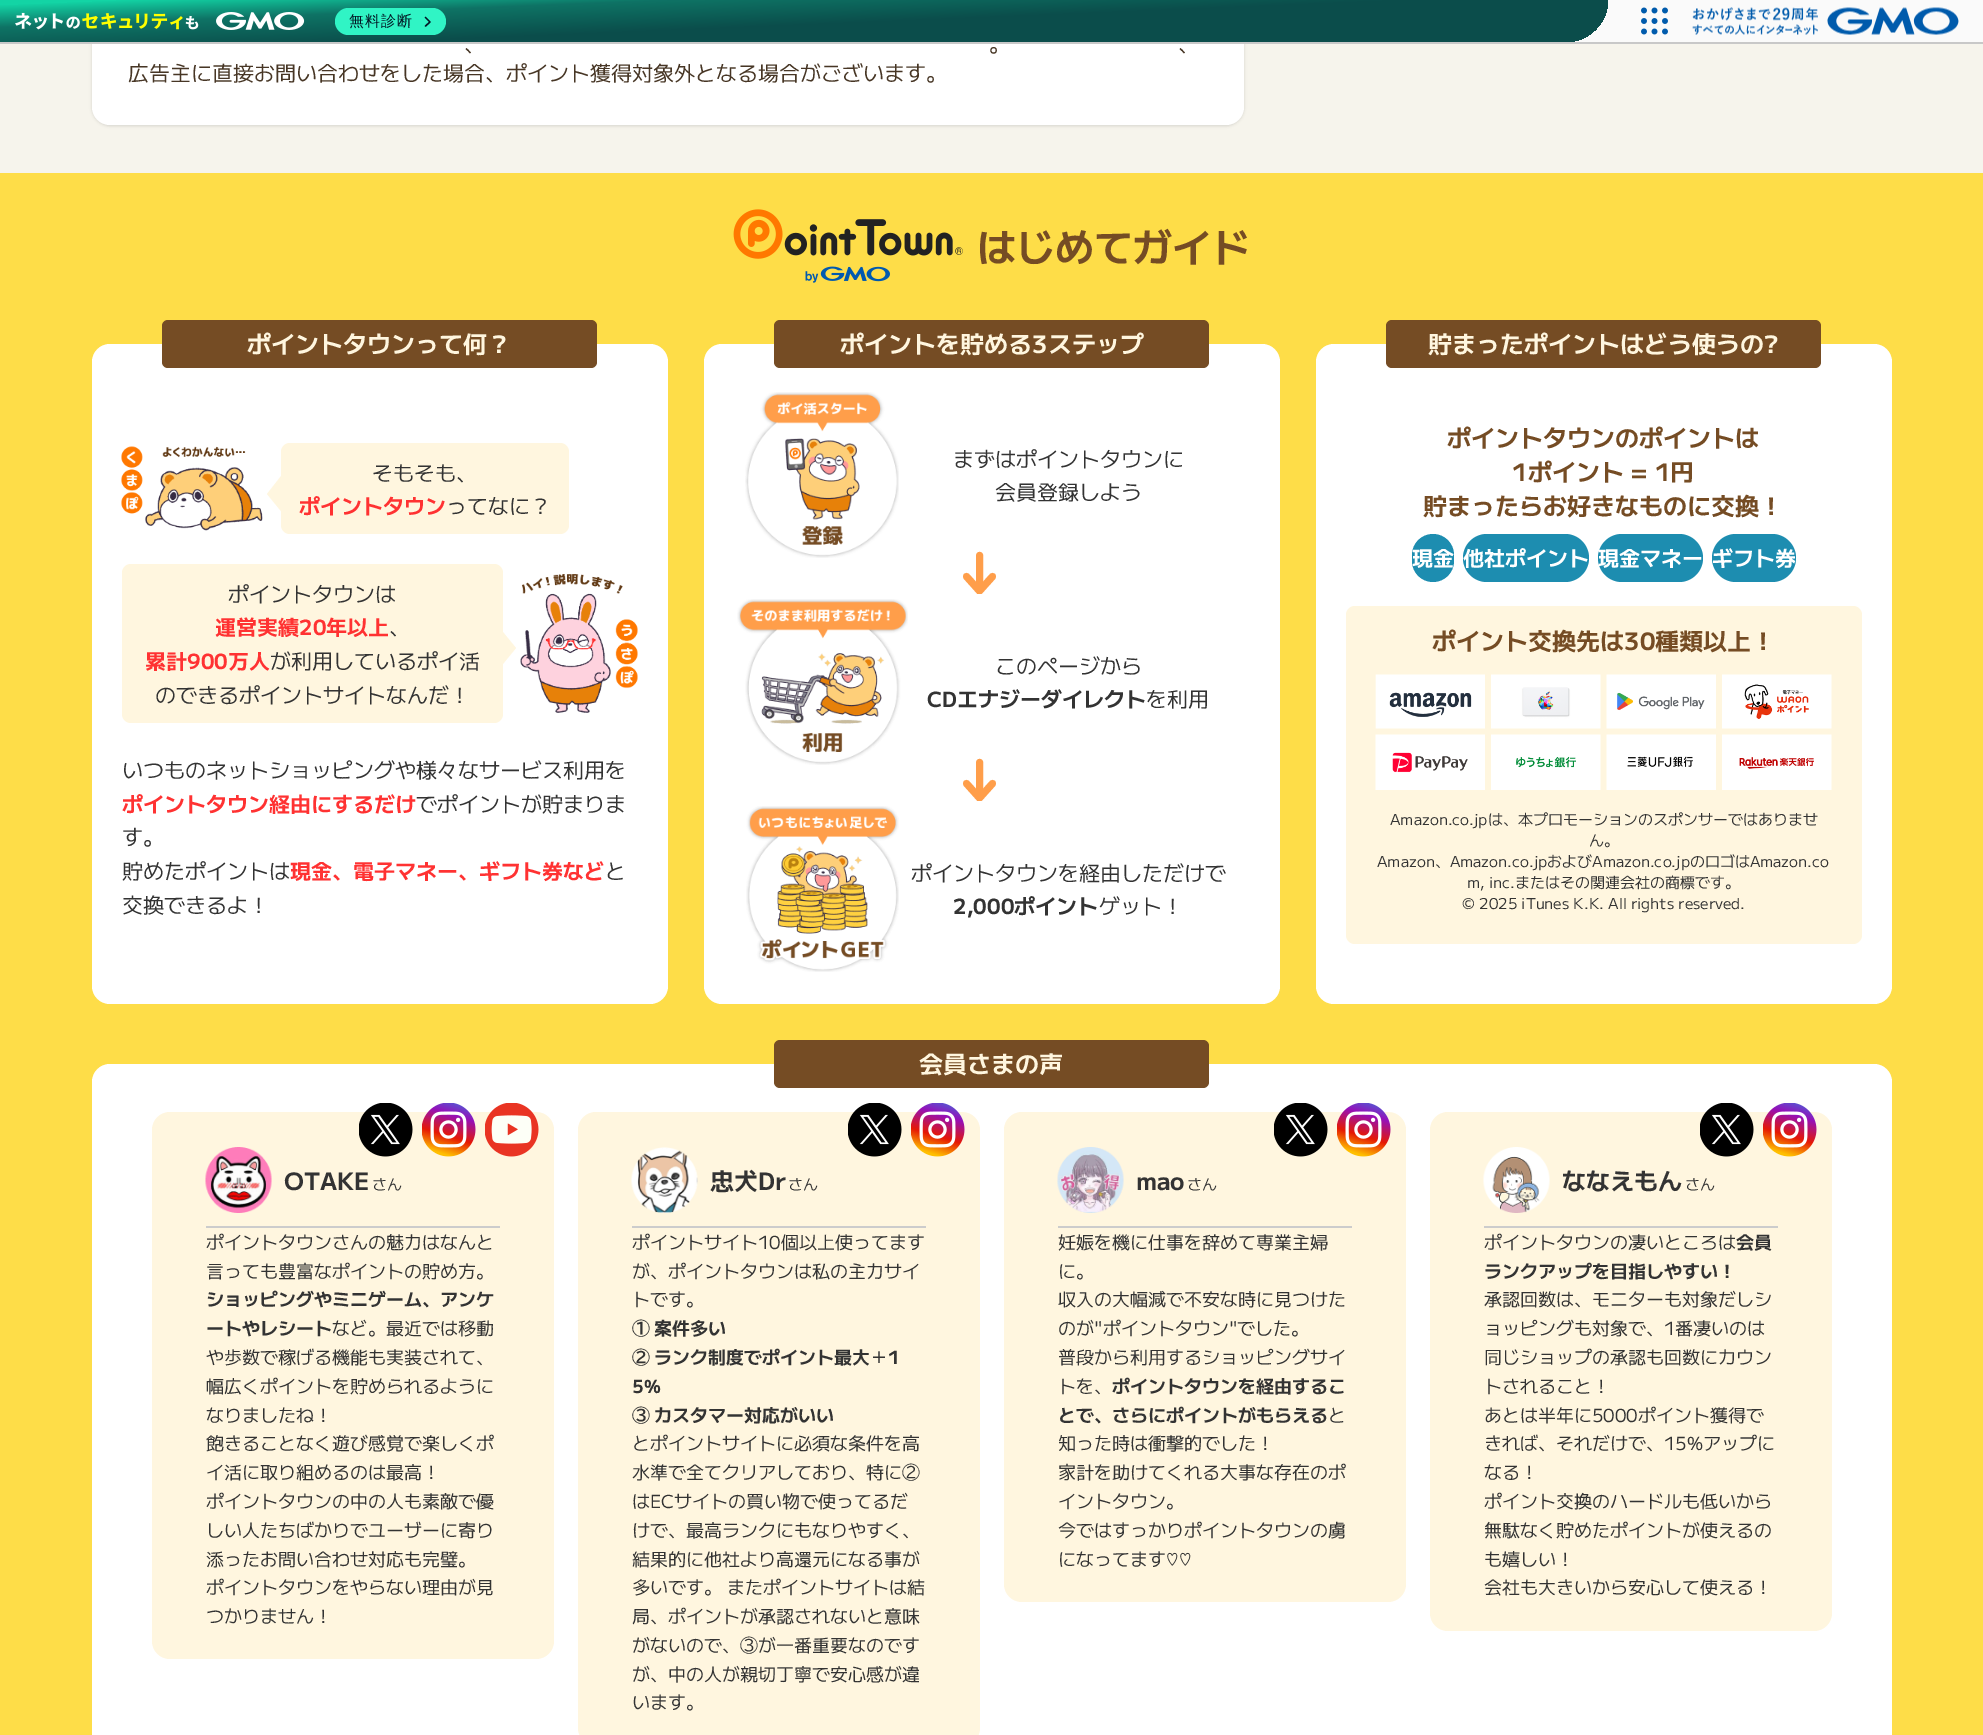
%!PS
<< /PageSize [1983 1735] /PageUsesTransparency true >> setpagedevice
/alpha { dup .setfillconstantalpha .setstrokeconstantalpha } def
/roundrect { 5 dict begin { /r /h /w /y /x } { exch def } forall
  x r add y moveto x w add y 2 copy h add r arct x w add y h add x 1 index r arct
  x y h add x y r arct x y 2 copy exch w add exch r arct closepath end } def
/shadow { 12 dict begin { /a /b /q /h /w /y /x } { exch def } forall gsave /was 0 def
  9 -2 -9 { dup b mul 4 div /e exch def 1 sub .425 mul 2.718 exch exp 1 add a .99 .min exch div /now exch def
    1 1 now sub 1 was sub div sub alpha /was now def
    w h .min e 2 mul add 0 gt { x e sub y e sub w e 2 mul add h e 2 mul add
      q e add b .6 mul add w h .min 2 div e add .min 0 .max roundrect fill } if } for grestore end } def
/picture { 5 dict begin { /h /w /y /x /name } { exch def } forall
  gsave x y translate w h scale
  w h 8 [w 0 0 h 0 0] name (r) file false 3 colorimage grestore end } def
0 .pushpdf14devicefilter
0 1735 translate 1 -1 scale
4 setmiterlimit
0.965 0.957 0.925 setrgbcolor
0 0 1983 1735 rectfill
0.98 setgray
1566 0 417 42 rectfill
0 setgray
92 -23 1152 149 18 1.5 0.12 shadow
1 setgray
92 -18 1152 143 18 roundrect fill
0.784 setgray
0 42 1983 2 rectfill
gsave newpath 0 0 moveto 1608 0 lineto 1608 23 1589 42 1566 42 curveto 0 42 lineto closepath clip newpath
<< /ShadingType 2 /ColorSpace /DeviceRGB /Coords [802 -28 806 70] /Extend [true true] /Function << /FunctionType 3 /Domain [0 1] /Functions [<< /FunctionType 2 /Domain [0 1] /C0 [0.075 0.831 0.647] /C1 [0.055 0.451 0.396] /N 1 >> << /FunctionType 2 /Domain [0 1] /C0 [0.055 0.451 0.396] /C1 [0.043 0.302 0.294] /N 1 >> << /FunctionType 2 /Domain [0 1] /C0 [0.043 0.302 0.294] /C1 [0.043 0.302 0.294] /N 1 >>] /Bounds [0.23 0.54] /Encode [0 1 0 1 0 1] >> >> shfill grestore
(img1.rgb) 15 12 290 18 picture
0.188 0.957 0.773 setrgbcolor
335 8 111 27 13.5 roundrect fill
/WenQuanYiZenHei-Medium [15 0 0 -15 0 0] selectfont
0.008 0.09 0.145 setrgbcolor
349 26 moveto 1 0 (無料診断) ashow
1.4 setlinewidth
1 setlinecap
1 setlinejoin
newpath 425.5 17.5 moveto 430 22 lineto 425.5 26 lineto stroke
(img2.rgb) 1641 7 27 28 picture
(img3.rgb) 1692 7 267 28 picture
/MPLUS1-Regular [21 0 0 -21 0 0] selectfont
0.278 0.212 0.145 setrgbcolor
464 52 moveto (、) show
989 52 moveto (。) show
1178 52 moveto (、) show
128 81 moveto (広告主に直接お問い合わせをした場合、ポイント獲得対象外となる場合がございます。) show
0.996 0.867 0.282 setrgbcolor
0 173 1983 1562 rectfill
(img4.rgb) 733 209 230 74 picture
/MPLUS1-Bold [39 0 0 -39 0 0] selectfont
0.459 0.298 0.141 setrgbcolor
977 262 moveto (はじめてガイド) show
1 setgray
92 344 576 660 18 roundrect fill
0.459 0.298 0.141 setrgbcolor
162 320 435 48 6 roundrect fill
/MPLUS1-Bold [24 0 0 -24 0 0] selectfont
1 0.965 0.875 setrgbcolor
247 353 moveto (ポイントタウンって何？) show
(img5.rgb) 121 446 142 85 picture
281 443 288 91 9 roundrect fill
newpath 285 471 moveto 285 516 lineto 267 494 lineto closepath fill
/MPLUS1-Regular [21 0 0 -21 0 0] selectfont
0.2 setgray
372 481 moveto (そもそも、) show
/MPLUS1-Bold [21 0 0 -21 0 0] selectfont
1 0.196 0.196 setrgbcolor
299 514 moveto (ポイントタウン) show
/MPLUS1-Regular [21 0 0 -21 0 0] selectfont
0.2 setgray
446 514 moveto (ってなに？) show
1 0.965 0.875 setrgbcolor
122 564 381 159 9 roundrect fill
0.2 setgray
228 602 moveto (ポイントタウンは) show
/MPLUS1-Bold [21 0 0 -21 0 0] selectfont
1 0.196 0.196 setrgbcolor
215 635 moveto (運営実績20年以上) show
/MPLUS1-Regular [21 0 0 -21 0 0] selectfont
0.2 setgray
389 635 moveto (、) show
1 0.965 0.875 setrgbcolor
newpath 498 670 moveto 498 626 lineto 516 648 lineto closepath fill
/MPLUS1-Bold [21 0 0 -21 0 0] selectfont
1 0.196 0.196 setrgbcolor
145 669 moveto (累計900万人) show
/MPLUS1-Regular [21 0 0 -21 0 0] selectfont
0.2 setgray
270 669 moveto (が利用しているポイ活) show
155 703 moveto (のできるポイントサイトなんだ！) show
(img6.rgb) 520 574 118 139 picture
122 778 moveto (いつものネットショッピングや様々なサービス利用を) show
/MPLUS1-Bold [21 0 0 -21 0 0] selectfont
1 0.196 0.196 setrgbcolor
122 812 moveto (ポイントタウン経由にするだけ) show
/MPLUS1-Regular [21 0 0 -21 0 0] selectfont
0.2 setgray
416 812 moveto (でポイントが貯まりま) show
122 845 moveto (す。) show
122 879 moveto (貯めたポイントは) show
/MPLUS1-Bold [21 0 0 -21 0 0] selectfont
1 0.196 0.196 setrgbcolor
290 879 moveto (現金、電子マネー、ギフト券など) show
/MPLUS1-Regular [21 0 0 -21 0 0] selectfont
0.2 setgray
605 879 moveto (と) show
122 913 moveto (交換できるよ！) show
1 setgray
704 344 576 660 18 roundrect fill
0.459 0.298 0.141 setrgbcolor
774 320 435 48 6 roundrect fill
/MPLUS1-Bold [24 0 0 -24 0 0] selectfont
1 0.965 0.875 setrgbcolor
840 353 moveto (ポイントを貯める3ステップ) show
(img7.rgb) 745 392 154 166 picture
/MPLUS1-Regular [21 0 0 -21 0 0] selectfont
0.2 setgray
953 467 moveto (まずはポイントタウンに) show
995 500 moveto (会員登録しよう) show
1 0.62 0.29 setrgbcolor
7.1 setlinewidth
newpath 979.5 555.5 moveto 979.5 589 lineto stroke
gsave
963 552 33 42 rectclip
newpath 966.5 576.5 moveto 979.5 591 lineto 992.5 576.5 lineto stroke
grestore
(img8.rgb) 737 599 171 166 picture
0.2 setgray
995 674 moveto (このページから) show
/MPLUS1-Bold [21 0 0 -21 0 0] selectfont
927 707 moveto (CDエナジーダイレクト) show
/MPLUS1-Regular [21 0 0 -21 0 0] selectfont
1146 707 moveto (を利用) show
1 0.62 0.29 setrgbcolor
newpath 979.5 762.5 moveto 979.5 796 lineto stroke
gsave
963 759 33 42 rectclip
newpath 966.5 783.5 moveto 979.5 798 lineto 992.5 783.5 lineto stroke
grestore
(img9.rgb) 746 806 153 166 picture
0.2 setgray
911 881 moveto (ポイントタウンを経由しただけで) show
/MPLUS1-Bold [21 0 0 -21 0 0] selectfont
953 914 moveto (2,000ポイント) show
/MPLUS1-Regular [21 0 0 -21 0 0] selectfont
1099 914 moveto (ゲット！) show
1 setgray
1316 344 576 660 18 roundrect fill
0.459 0.298 0.141 setrgbcolor
1386 320 435 48 6 roundrect fill
/MPLUS1-Bold [24 0 0 -24 0 0] selectfont
1 0.965 0.875 setrgbcolor
1428 353 moveto (貯まったポイントはどう使うの?) show
0.459 0.298 0.141 setrgbcolor
1447 447 moveto (ポイントタウンのポイントは) show
1512 481 moveto (1ポイント = 1円) show
1423 515 moveto (貯まったらお好きなものに交換！) show
0.114 0.553 0.69 setrgbcolor
1412 534 42 48 21 roundrect fill
/MPLUS1-Bold [21 0 0 -21 0 0] selectfont
1 setgray
1412 566 moveto (現金) show
0.114 0.553 0.69 setrgbcolor
1463 534 126 48 24 roundrect fill
1 setgray
1463 566 moveto (他社ポイント) show
0.114 0.553 0.69 setrgbcolor
1598 534 105 48 24 roundrect fill
1 setgray
1598 566 moveto (現金マネー) show
0.114 0.553 0.69 setrgbcolor
1712 534 84 48 24 roundrect fill
1 setgray
1712 566 moveto (ギフト券) show
1 0.965 0.875 setrgbcolor
1346 606 516 338 9 roundrect fill
/MPLUS1-Bold [24 0 0 -24 0 0] selectfont
0.459 0.298 0.141 setrgbcolor
1432 650 moveto (ポイント交換先は30種類以上！) show
(img10.rgb) 1375 674 110 55 picture
(img11.rgb) 1491 674 110 55 picture
(img12.rgb) 1606 674 110 55 picture
(img13.rgb) 1722 674 110 55 picture
(img14.rgb) 1375 734 110 56 picture
(img15.rgb) 1491 734 110 56 picture
(img16.rgb) 1606 734 110 56 picture
(img17.rgb) 1722 734 110 56 picture
/MPLUS1-Regular [15 0 0 -15 0 0] selectfont
0.2 setgray
1390 825 moveto (Amazon.co.jpは、本プロモーションのスポンサーではありませ) show
1589 846 moveto (ん。) show
1377 867 moveto (Amazon、Amazon.co.jpおよびAmazon.co.jpのロゴはAmazon.co) show
1467 888 moveto (m, inc.またはその関連会社の商標です。) show
1462 909 moveto (© 2025 iTunes K.K. All rights reserved.) show
1 setgray
92 1064 1800 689 18 roundrect fill
0.459 0.298 0.141 setrgbcolor
774 1040 435 48 6 roundrect fill
/MPLUS1-Bold [24 0 0 -24 0 0] selectfont
1 0.965 0.875 setrgbcolor
919 1073 moveto (会員さまの声) show
152 1112 402 547 18 roundrect fill
0.8 setgray
206 1226 294 2 rectfill
(img18.rgb) 359 1103 54 54 picture
(img19.rgb) 422 1103 54 54 picture
(img20.rgb) 485 1103 54 54 picture
(img21.rgb) 205 1147 67 66 picture
0.2 setgray
284 1190 moveto (OTAKE) show
/MPLUS1-Regular [15 0 0 -15 0 0] selectfont
372 1190 moveto (さん) show
/MPLUS1-Regular [18 0 0 -18 0 0] selectfont
206 1249 moveto (ポイントタウンさんの魅力はなんと) show
206 1278 moveto (言っても豊富なポイントの貯め方。) show
/MPLUS1-Bold [18 0 0 -18 0 0] selectfont
206 1306 moveto (ショッピングやミニゲーム、アンケ) show
206 1335 moveto (ートやレシート) show
/MPLUS1-Regular [18 0 0 -18 0 0] selectfont
332 1335 moveto (など。最近では移動) show
206 1364 moveto (や歩数で稼げる機能も実装されて、) show
206 1393 moveto (幅広くポイントを貯められるように) show
206 1422 moveto (なりましたね！) show
206 1450 moveto (飽きることなく遊び感覚で楽しくポ) show
206 1479 moveto (イ活に取り組めるのは最高！) show
206 1508 moveto (ポイントタウンの中の人も素敵で優) show
206 1537 moveto (しい人たちばかりでユーザーに寄り) show
206 1566 moveto (添ったお問い合わせ対応も完璧。) show
206 1594 moveto (ポイントタウンをやらない理由が見) show
206 1623 moveto (つかりません！) show
1 0.965 0.875 setrgbcolor
578 1112 402 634 18 roundrect fill
0.8 setgray
632 1226 294 2 rectfill
(img18.rgb) 848 1103 54 54 picture
(img22.rgb) 911 1103 54 54 picture
(img23.rgb) 631 1147 67 66 picture
/MPLUS1-Bold [24 0 0 -24 0 0] selectfont
0.2 setgray
710 1190 moveto (忠犬Dr) show
/MPLUS1-Regular [15 0 0 -15 0 0] selectfont
788 1190 moveto (さん) show
/MPLUS1-Regular [18 0 0 -18 0 0] selectfont
632 1249 moveto (ポイントサイト10個以上使ってます) show
632 1278 moveto (が、ポイントタウンは私の主力サイ) show
632 1306 moveto (トです。) show
/BIZUDPGothic-Bold [18 0 0 -18 0 0] selectfont
632 1335 moveto (①) show
/MPLUS1-Bold [18 0 0 -18 0 0] selectfont
654 1335 moveto (案件多い) show
/BIZUDPGothic-Bold [18 0 0 -18 0 0] selectfont
632 1364 moveto (②) show
/MPLUS1-Bold [18 0 0 -18 0 0] selectfont
654 1364 moveto (ランク制度でポイント最大) show
/BIZUDPGothic-Bold [18 0 0 -18 0 0] selectfont
870 1364 moveto (＋) show
/MPLUS1-Bold [18 0 0 -18 0 0] selectfont
888 1364 moveto (1) show
632 1393 moveto (5%) show
/BIZUDPGothic-Bold [18 0 0 -18 0 0] selectfont
632 1422 moveto (③) show
/MPLUS1-Bold [18 0 0 -18 0 0] selectfont
654 1422 moveto (カスタマー対応がいい) show
/MPLUS1-Regular [18 0 0 -18 0 0] selectfont
632 1450 moveto (とポイントサイトに必須な条件を高) show
632 1479 moveto (水準で全てクリアしており、特に) show
/BIZUDPGothic-Regular [18 0 0 -18 0 0] selectfont
902 1479 moveto (②) show
/MPLUS1-Regular [18 0 0 -18 0 0] selectfont
632 1508 moveto (はECサイトの買い物で使ってるだ) show
632 1537 moveto (けで、最高ランクにもなりやすく、) show
632 1566 moveto (結果的に他社より高還元になる事が) show
632 1594 moveto (多いです。 またポイントサイトは結) show
632 1623 moveto (局、ポイントが承認されないと意味) show
632 1652 moveto (がないので、) show
/BIZUDPGothic-Regular [18 0 0 -18 0 0] selectfont
740 1652 moveto (③) show
/MPLUS1-Regular [18 0 0 -18 0 0] selectfont
758 1652 moveto (が一番重要なのです) show
632 1681 moveto (が、中の人が親切丁寧で安心感が違) show
632 1709 moveto (います。) show
1 0.965 0.875 setrgbcolor
1004 1112 402 490 18 roundrect fill
0.8 setgray
1058 1226 294 2 rectfill
(img18.rgb) 1274 1103 54 54 picture
(img22.rgb) 1337 1103 54 54 picture
(img24.rgb) 1057 1147 67 66 picture
/MPLUS1-Bold [24 0 0 -24 0 0] selectfont
0.2 setgray
1136 1190 moveto (mao) show
/MPLUS1-Regular [15 0 0 -15 0 0] selectfont
1187 1190 moveto (さん) show
/MPLUS1-Regular [18 0 0 -18 0 0] selectfont
1058 1249 moveto (妊娠を機に仕事を辞めて専業主婦) show
1058 1278 moveto (に。) show
1058 1306 moveto (収入の大幅減で不安な時に見つけた) show
1058 1335 moveto (のが"ポイントタウン"でした。) show
1058 1364 moveto (普段から利用するショッピングサイ) show
1058 1393 moveto (トを、) show
/MPLUS1-Bold [18 0 0 -18 0 0] selectfont
1112 1393 moveto (ポイントタウンを経由するこ) show
1058 1422 moveto (とで、さらにポイントがもらえる) show
/MPLUS1-Regular [18 0 0 -18 0 0] selectfont
1328 1422 moveto (と) show
1058 1450 moveto (知った時は衝撃的でした！) show
1058 1479 moveto (家計を助けてくれる大事な存在のポ) show
1058 1508 moveto (イントタウン。) show
1058 1537 moveto (今ではすっかりポイントタウンの虜) show
1058 1566 moveto (になってます) show
/BIZUDPGothic-Regular [18 0 0 -18 0 0] selectfont
1166 1566 moveto (♡♡) show
1 0.965 0.875 setrgbcolor
1430 1112 402 519 18 roundrect fill
0.8 setgray
1484 1226 294 2 rectfill
(img18.rgb) 1700 1103 54 54 picture
(img22.rgb) 1763 1103 54 54 picture
(img25.rgb) 1483 1147 67 66 picture
/MPLUS1-Bold [24 0 0 -24 0 0] selectfont
0.2 setgray
1562 1190 moveto (ななえもん) show
/MPLUS1-Regular [15 0 0 -15 0 0] selectfont
1685 1190 moveto (さん) show
/MPLUS1-Regular [18 0 0 -18 0 0] selectfont
1484 1249 moveto (ポイントタウンの凄いところは) show
/MPLUS1-Bold [18 0 0 -18 0 0] selectfont
1736 1249 moveto (会員) show
1484 1278 moveto (ランクアップを目指しやすい！) show
/MPLUS1-Regular [18 0 0 -18 0 0] selectfont
1484 1306 moveto (承認回数は、モニターも対象だしシ) show
1484 1335 moveto (ョッピングも対象で、1番凄いのは) show
1484 1364 moveto (同じショップの承認も回数にカウン) show
1484 1393 moveto (トされること！) show
1484 1422 moveto (あとは半年に5000ポイント獲得で) show
1484 1450 moveto (きれば、それだけで、15%アップに) show
1484 1479 moveto (なる！) show
1484 1508 moveto (ポイント交換のハードルも低いから) show
1484 1537 moveto (無駄なく貯めたポイントが使えるの) show
1484 1566 moveto (も嬉しい！) show
1484 1594 moveto (会社も大きいから安心して使える！) show
.poppdf14devicefilter showpage
